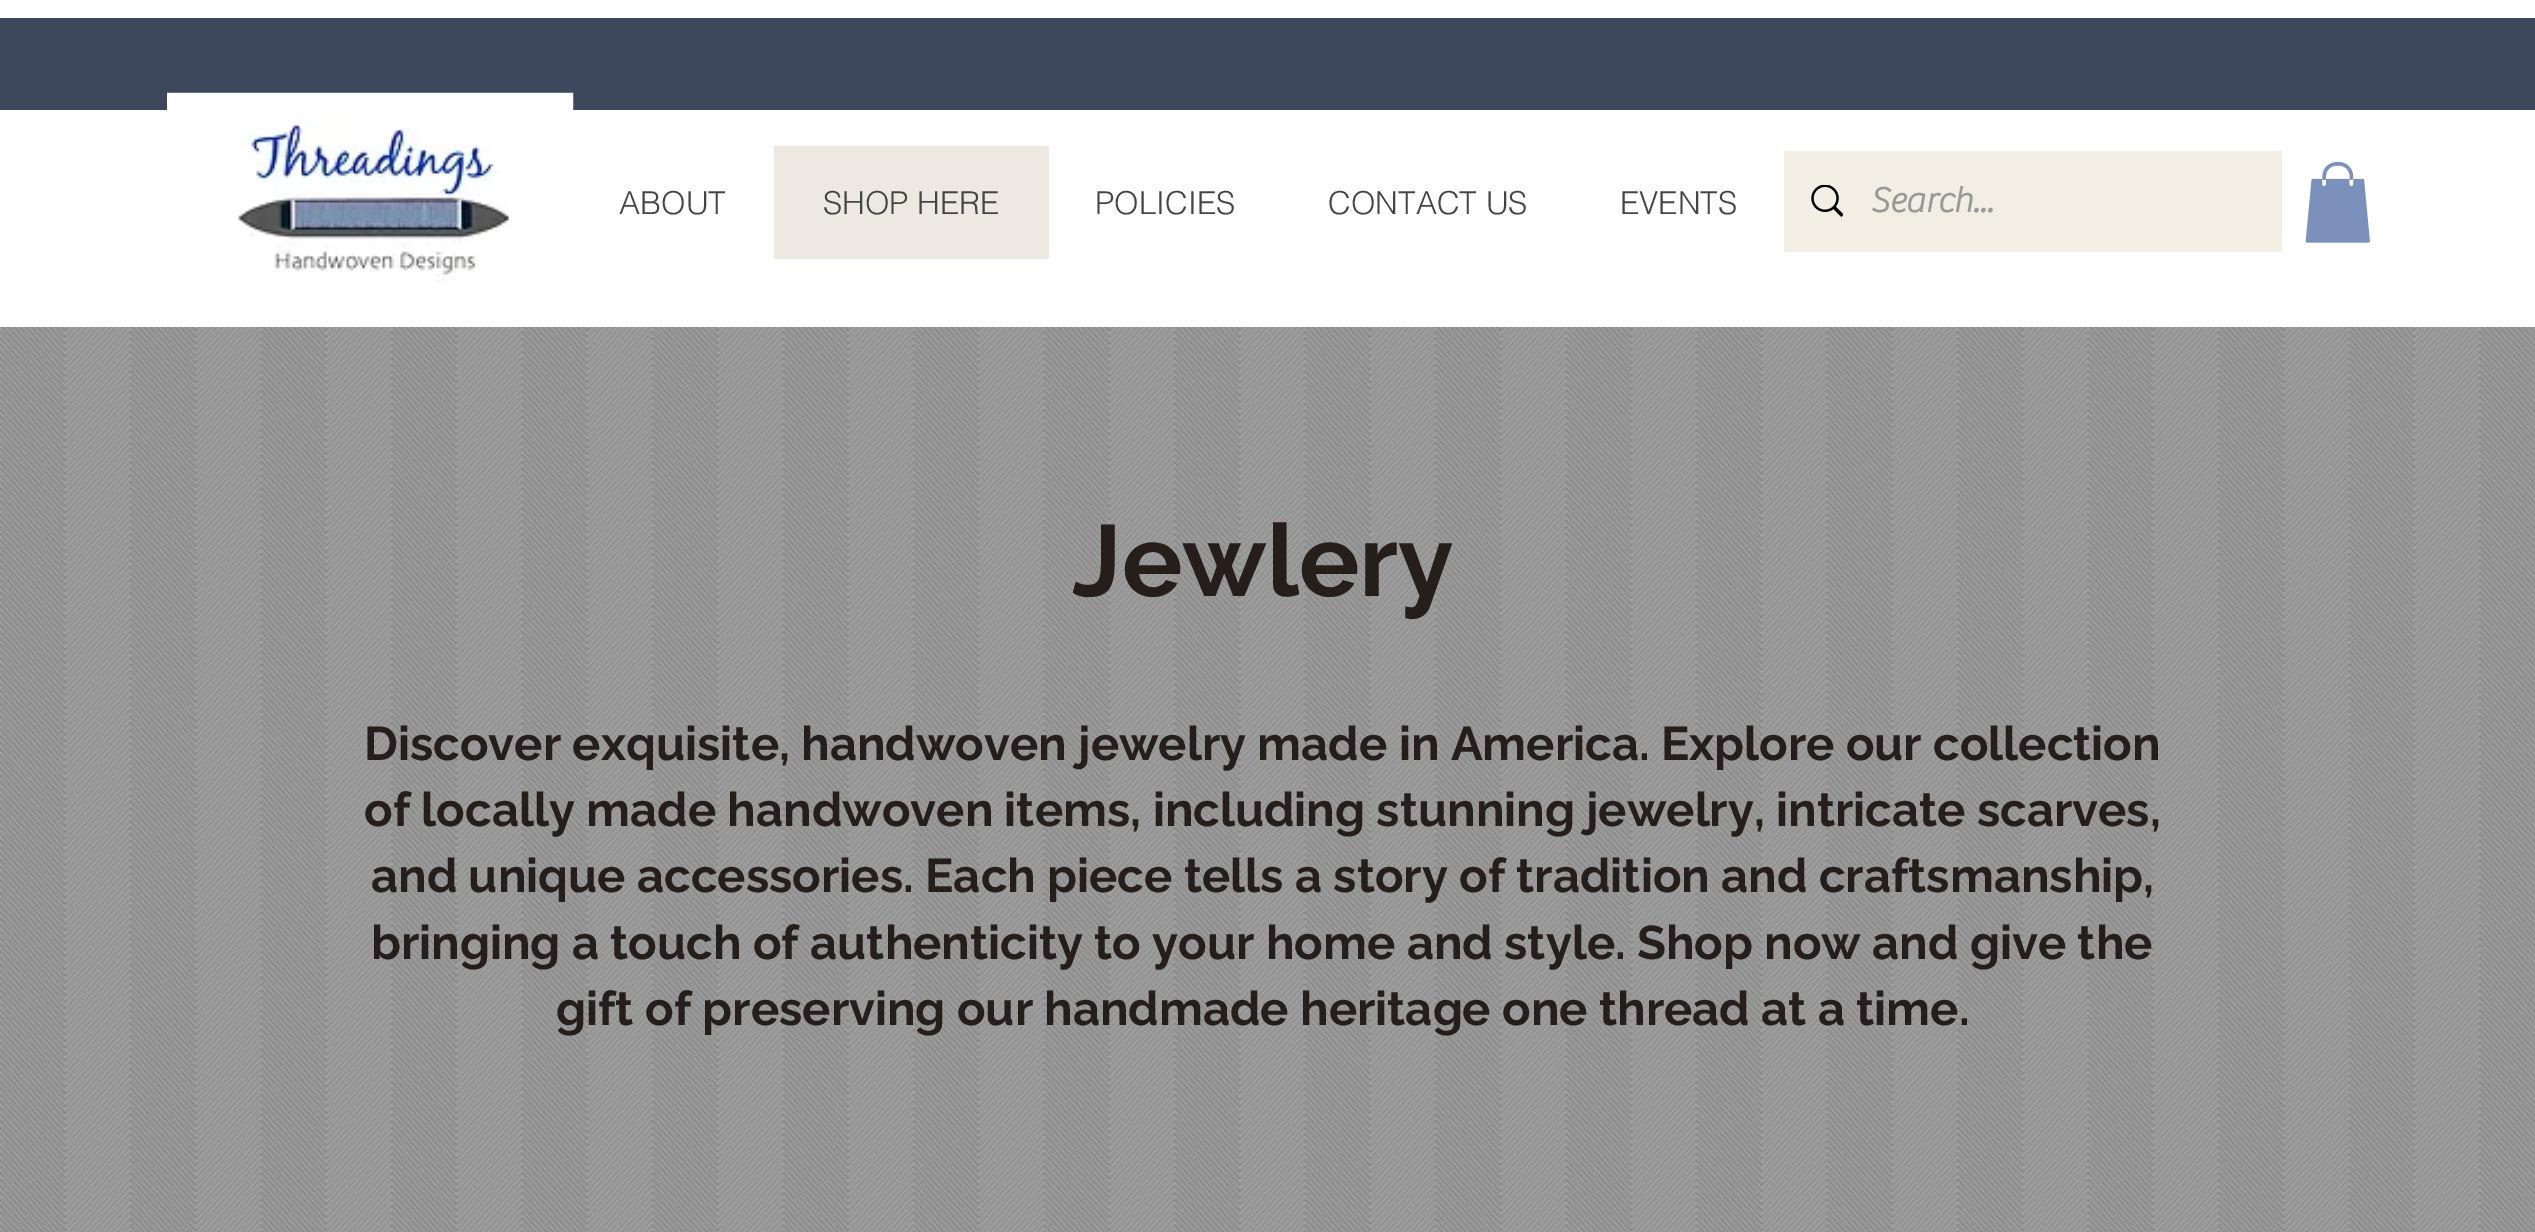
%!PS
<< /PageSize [2535 1232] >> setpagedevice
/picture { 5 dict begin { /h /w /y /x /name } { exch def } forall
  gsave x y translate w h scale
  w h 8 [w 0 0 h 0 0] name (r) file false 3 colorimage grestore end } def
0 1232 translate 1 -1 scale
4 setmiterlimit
0.655 setgray
0 0 2535 1232 rectfill
1 setgray
0 0 2535 327 rectfill
0.239 0.282 0.365 setrgbcolor
0 18 2535 92 rectfill
(img1.rgb) 167 92 407 189 picture
/helvetica-Light [31.5 0 0 -31.5 0 0] selectfont
0.267 setgray
619 214 moveto (ABOUT) show
0.929 0.914 0.882 setrgbcolor
774 146 275 113 rectfill
0.267 setgray
823 214 moveto (SHOP HERE) show
1095 214 moveto (POLICIES) show
1328 214 moveto (CONTACT US) show
1620 214 moveto (EVENTS) show
0.949 0.933 0.894 setrgbcolor
1784 151 498 101 rectfill
(img2.rgb) 1811 185 32 32 picture
/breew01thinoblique-Bold [36 0 0 -36 0 0] selectfont
0.6 setgray
1870 212 moveto (Search...) show
(img3.rgb) 2305 162 65 81 picture
(img4.rgb) 0 327 2535 905 picture
/Raleway-Bold [101 0 0 -101 0 0] selectfont
0.145 0.118 0.106 setrgbcolor
1072 596 moveto (Jewlery) show
/Raleway-Bold [47.25 0 0 -47.25 0 0] selectfont
364 760 moveto (Discover exquisite, handwoven jewelry made in America. Explore our collection) show
364 826 moveto (of locally made handwoven items, including stunning jewelry, intricate scarves,) show
371 892 moveto (and unique accessories. Each piece tells a story of tradition and craftsmanship,) show
371 959 moveto (bringing a touch of authenticity to your home and style. Shop now and give the) show
556 1025 moveto (gift of preserving our handmade heritage one thread at a time.) show
showpage
